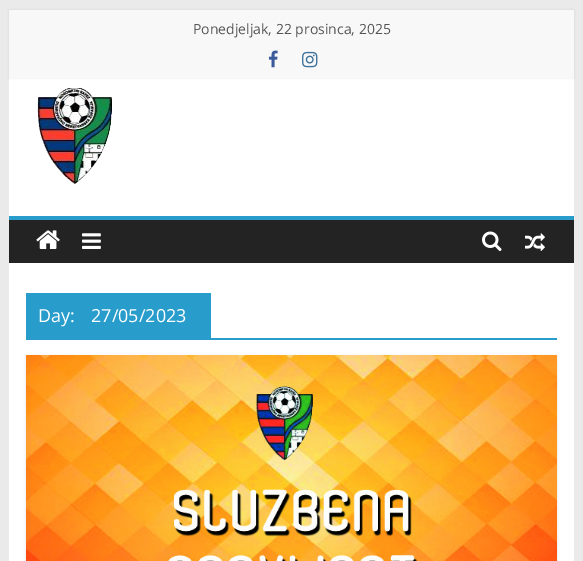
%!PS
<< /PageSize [583 561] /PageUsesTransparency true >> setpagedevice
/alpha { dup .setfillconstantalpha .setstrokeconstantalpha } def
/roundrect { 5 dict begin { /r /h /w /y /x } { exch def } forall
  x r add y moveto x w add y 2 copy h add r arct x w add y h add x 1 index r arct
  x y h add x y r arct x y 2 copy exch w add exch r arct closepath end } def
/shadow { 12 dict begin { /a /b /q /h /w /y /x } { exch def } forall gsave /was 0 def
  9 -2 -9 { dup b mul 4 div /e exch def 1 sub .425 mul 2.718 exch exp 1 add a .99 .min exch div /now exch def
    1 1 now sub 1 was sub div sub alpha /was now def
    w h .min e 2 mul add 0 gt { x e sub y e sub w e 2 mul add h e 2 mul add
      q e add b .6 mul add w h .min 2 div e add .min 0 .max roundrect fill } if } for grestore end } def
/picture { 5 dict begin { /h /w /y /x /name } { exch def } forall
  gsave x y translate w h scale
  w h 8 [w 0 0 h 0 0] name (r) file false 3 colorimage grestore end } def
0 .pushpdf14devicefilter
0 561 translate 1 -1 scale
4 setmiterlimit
0.918 setgray
0 0 583 561 rectfill
1 setgray
9 78 565 138 rectfill
0 setgray
9 10 565 68 0 1 0.1 shadow
0.973 setgray
9 10 565 68 rectfill
/OpenSans-Regular [14 0 0 -14 0 0] selectfont
0.333 setgray
193 34 moveto (Ponedjeljak, 22 prosinca, 2025) show
(img1.rgb) 268 50 10 18 picture
(img2.rgb) 302 51 16 17 picture
(img3.rgb) 37 88 75 96 picture
0.137 setgray
9 220 565 43 rectfill
0.157 0.616 0.8 setrgbcolor
9 216 565 4 rectfill
(img4.rgb) 36 230 24 19 picture
(img5.rgb) 82 233 19 16 picture
(img6.rgb) 482 231 20 20 picture
(img7.rgb) 525 233 20 18 picture
1 setgray
9 263 565 298 rectfill
0.157 0.616 0.8 setrgbcolor
26 338 531 2 rectfill
26 293 185 45 rectfill
/OpenSans-Regular [18 0 0 -18 0 0] selectfont
1 setgray
38 322 moveto (Day:) show
91 322 moveto (27/05/2023) show
0 setgray
26 356 531 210 0 1.5 0.1 shadow
(img8.rgb) 26 355 531 206 picture
.poppdf14devicefilter showpage
